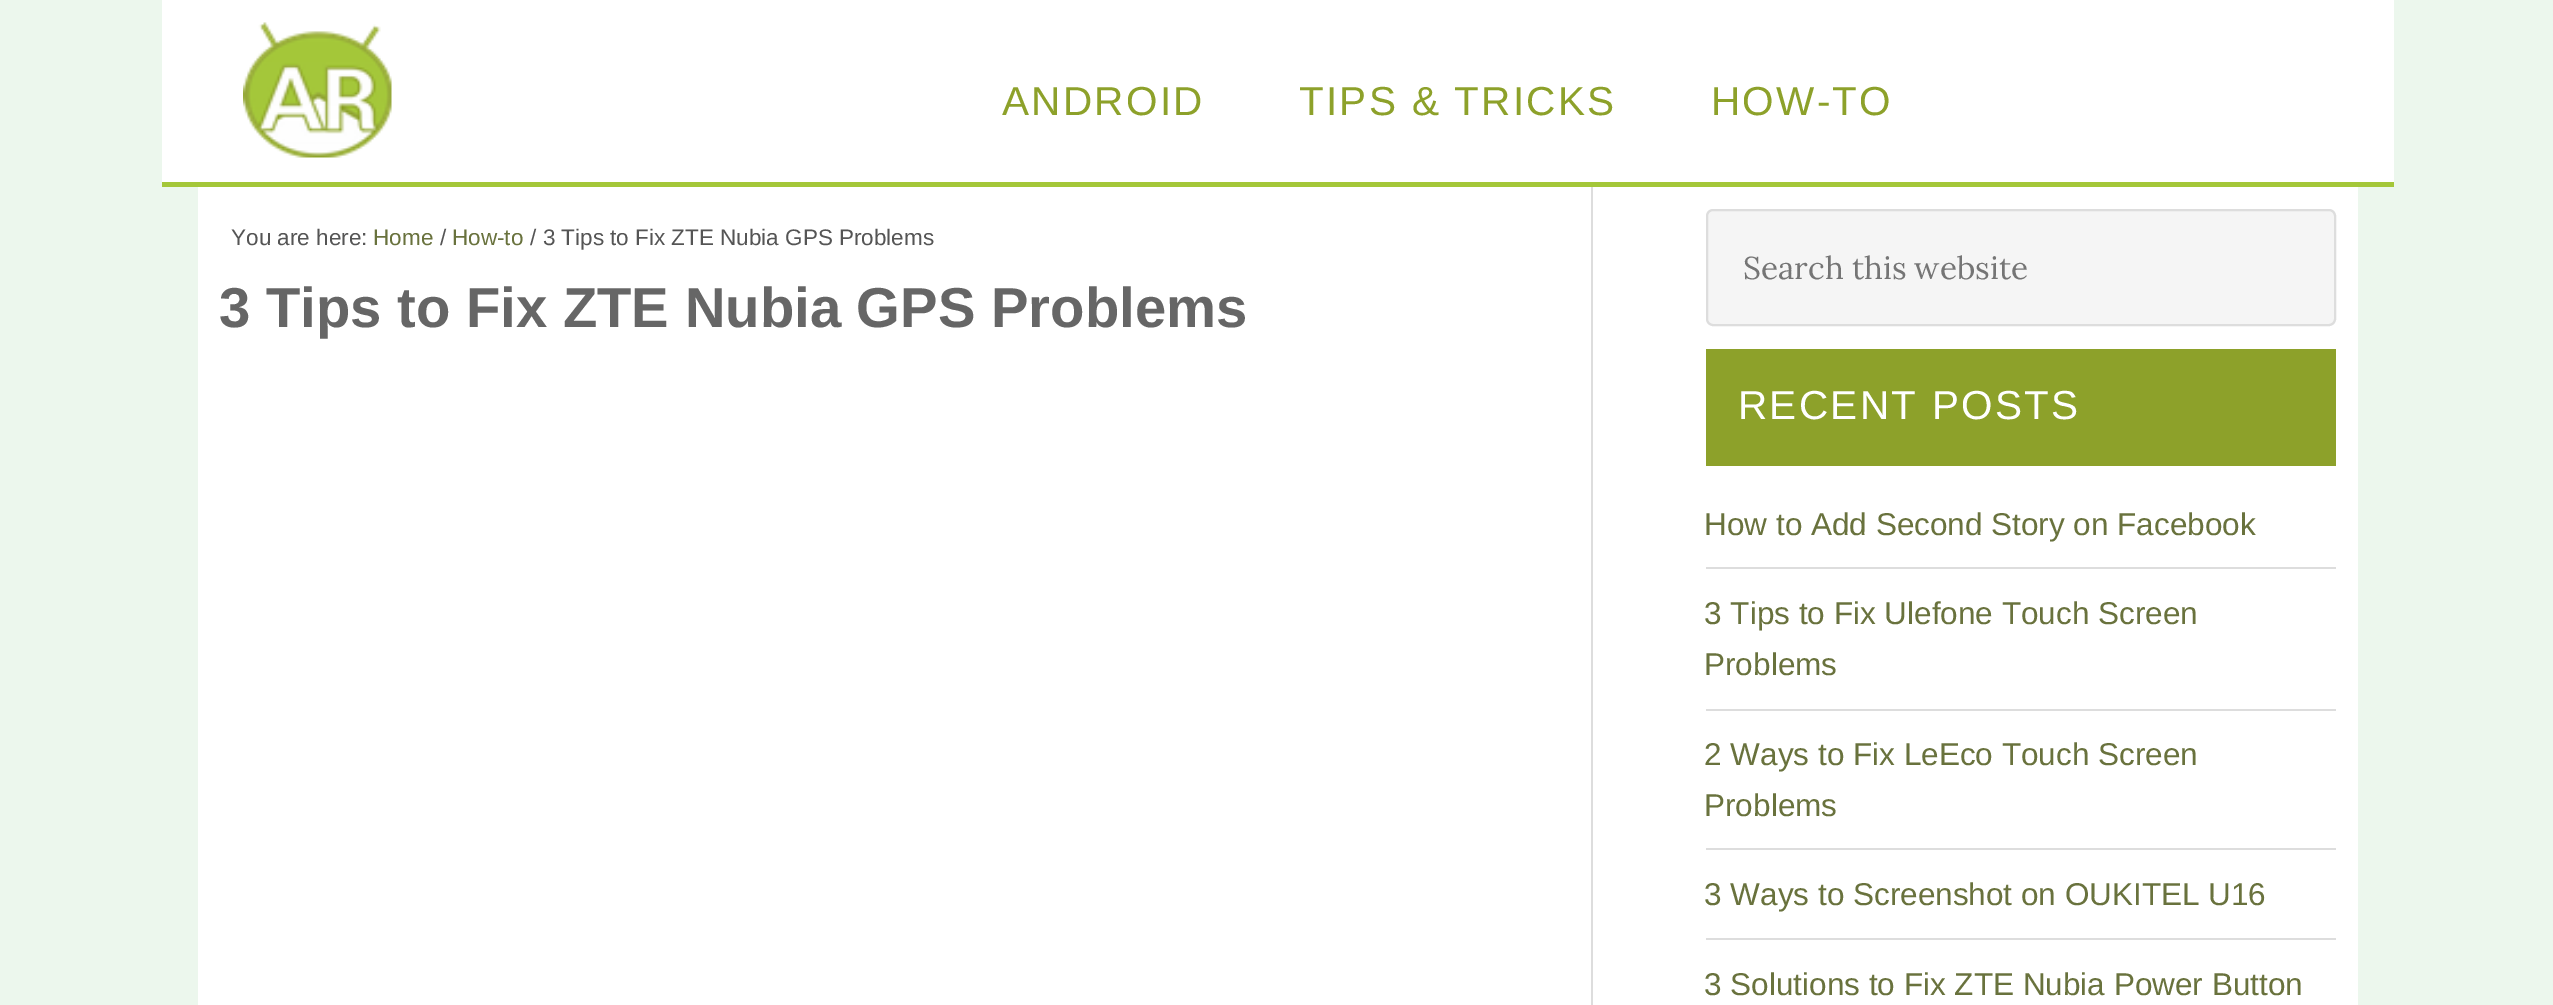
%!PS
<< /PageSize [2553 1005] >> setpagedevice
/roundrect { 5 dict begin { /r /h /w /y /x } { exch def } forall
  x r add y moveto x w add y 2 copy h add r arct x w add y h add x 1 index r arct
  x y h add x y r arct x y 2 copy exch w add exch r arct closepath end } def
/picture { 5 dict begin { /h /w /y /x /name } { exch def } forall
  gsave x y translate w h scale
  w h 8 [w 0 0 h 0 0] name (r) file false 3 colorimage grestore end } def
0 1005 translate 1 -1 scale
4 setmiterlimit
0.925 0.969 0.929 setrgbcolor
0 0 2553 1005 rectfill
1 setgray
162 0 2232 182 rectfill
0.643 0.78 0.224 setrgbcolor
162 182 2232 5 rectfill
(img1.rgb) 243 22 149 136 picture
/LiberationSans-Regular [40.5 0 0 -40.5 0 0] selectfont
0.553 0.631 0.165 setrgbcolor
1002 115 moveto 2.25 0 (ANDROID) ashow
1299 115 moveto 2.25 0 (TIPS & TRICKS) ashow
1711 115 moveto 2.25 0 (HOW-TO) ashow
1 setgray
198 187 2160 818 rectfill
0.867 setgray
1591 187 2 818 rectfill
/LiberationSans-Regular [22.5 0 0 -22.5 0 0] selectfont
0.333 setgray
231 245 moveto (You are here:) show
0.412 0.447 0.239 setrgbcolor
373 245 moveto (Home) show
0.333 setgray
440 245 moveto (/) show
0.412 0.447 0.239 setrgbcolor
452 245 moveto (How-to) show
0.333 setgray
530 245 moveto (/ 3 Tips to Fix ZTE Nubia GPS Problems) show
/LiberationSans-Bold [56.25 0 0 -56.25 0 0] selectfont
0.4 setgray
219 327 moveto (3 Tips to Fix ZTE Nubia GPS Problems) show
0.961 setgray
1707 210 628 115 6 roundrect gsave fill grestore
0.867 setgray
2 setlinewidth
stroke
/Lora-Regular [31.5 0 0 -31.5 0 0] selectfont
0.459 setgray
1743 279 moveto (Search this website) show
0.553 0.631 0.165 setrgbcolor
1706 349 630 117 rectfill
/LiberationSans-Regular [40.5 0 0 -40.5 0 0] selectfont
1 setgray
1738 419 moveto 2.25 0 (RECENT POSTS) ashow
0.867 setgray
1706 567 630 2 rectfill
/LiberationSans-Regular [31.5 0 0 -31.5 0 0] selectfont
0.412 0.447 0.239 setrgbcolor
1704 535 moveto (How to Add Second Story on Facebook) show
0.867 setgray
1706 709 630 2 rectfill
0.412 0.447 0.239 setrgbcolor
1704 624 moveto (3 Tips to Fix Ulefone Touch Screen) show
1704 675 moveto (Problems) show
0.867 setgray
1706 848 630 2 rectfill
0.412 0.447 0.239 setrgbcolor
1704 765 moveto (2 Ways to Fix LeEco Touch Screen) show
1704 816 moveto (Problems) show
0.867 setgray
1706 938 630 2 rectfill
0.412 0.447 0.239 setrgbcolor
1704 905 moveto (3 Ways to Screenshot on OUKITEL U16) show
1704 995 moveto (3 Solutions to Fix ZTE Nubia Power Button) show
showpage
